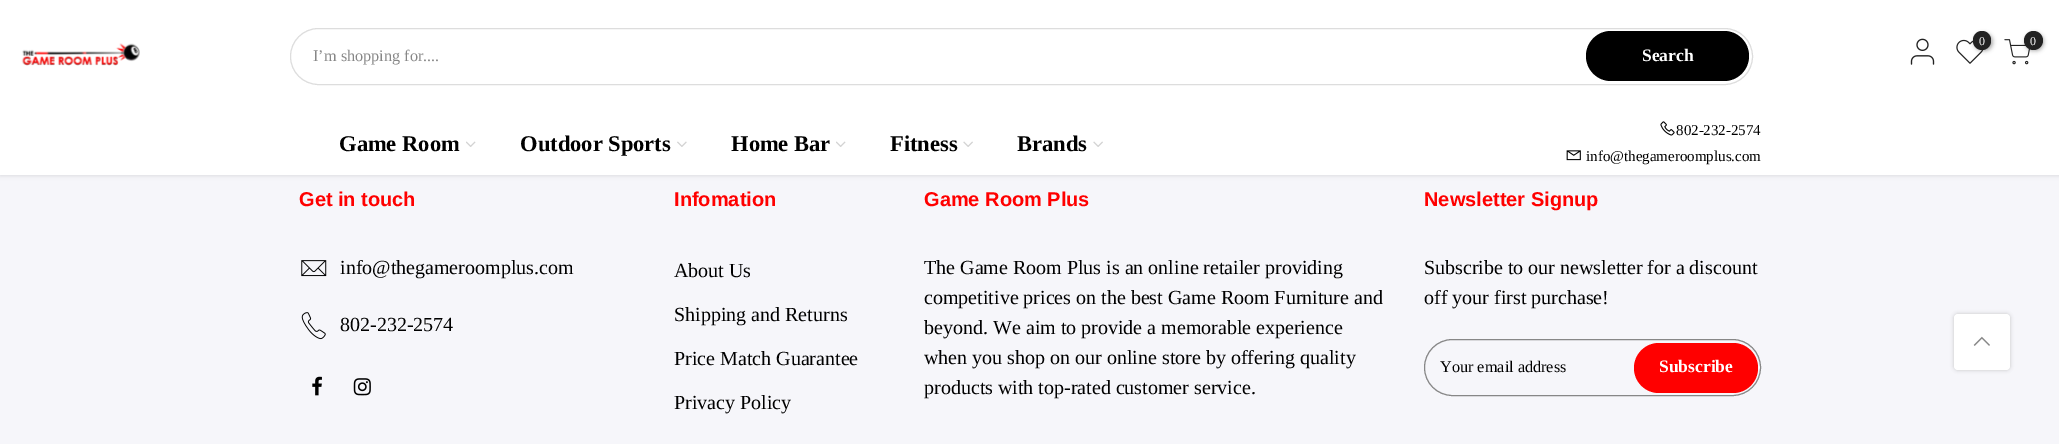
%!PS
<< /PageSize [2059 444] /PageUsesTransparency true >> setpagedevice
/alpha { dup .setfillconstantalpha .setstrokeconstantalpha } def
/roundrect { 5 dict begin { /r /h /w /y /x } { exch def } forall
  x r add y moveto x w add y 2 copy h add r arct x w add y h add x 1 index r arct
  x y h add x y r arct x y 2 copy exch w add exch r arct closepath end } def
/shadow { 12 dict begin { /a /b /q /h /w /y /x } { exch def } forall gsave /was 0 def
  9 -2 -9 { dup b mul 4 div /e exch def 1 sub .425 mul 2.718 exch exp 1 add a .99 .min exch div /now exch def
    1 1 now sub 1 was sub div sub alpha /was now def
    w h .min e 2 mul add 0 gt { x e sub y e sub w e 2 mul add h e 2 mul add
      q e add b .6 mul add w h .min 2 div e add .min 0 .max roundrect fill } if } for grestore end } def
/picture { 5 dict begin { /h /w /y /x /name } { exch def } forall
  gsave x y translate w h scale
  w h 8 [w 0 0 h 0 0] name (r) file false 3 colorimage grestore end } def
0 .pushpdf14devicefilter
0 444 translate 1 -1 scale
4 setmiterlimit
0.965 0.965 0.98 setrgbcolor
0 0 2059 444 rectfill
0 setgray
0 1 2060 175 0 2 0.1 shadow
1 setgray
0 0 2059 175 rectfill
(img1.rgb) 1910 38 25 27 picture
(img2.rgb) 1956 39 28 25 picture
0 setgray
1974 33 19 18 9 2 0.3 shadow
0.133 setgray
1973 31 18 19 9 roundrect fill
/LiberationSerif-Regular [12 0 0 -12 0 0] selectfont
1 setgray
1979 45 moveto (0) show
(img3.rgb) 2004 39 26 26 picture
0 setgray
2025 33 19 18 9 2 0.3 shadow
0.133 setgray
newpath 2033.5 40.5 9.5 0 360 arc closepath fill
1 setgray
2030 45 moveto (0) show
(img4.rgb) 21 43 119 23 picture
0.867 setgray
290.5 28.5 1462 56 28 roundrect stroke
/LiberationSerif-Regular [16.25 0 0 -16.25 0 0] selectfont
0.529 setgray
313 61 moveto (I’m shopping for....) show
0 setgray
1586 31 163 50 25 roundrect fill
/LiberationSerif-Bold [17.5 0 0 -17.5 0 0] selectfont
1 setgray
1642 61 moveto (Search) show
/LiberationSerif-Bold [22.5 0 0 -22.5 0 0] selectfont
0 setgray
339 151 moveto (Game Room) show
(img5.rgb) 466 141 10 6 picture
520 151 moveto (Outdoor Sports) show
(img6.rgb) 677 141 10 6 picture
731 151 moveto (Home Bar) show
(img5.rgb) 836 141 10 6 picture
890 151 moveto (Fitness) show
(img7.rgb) 963 141 10 6 picture
1017 151 moveto (Brands) show
(img7.rgb) 1093 141 10 6 picture
(img8.rgb) 1660 121 15 15 picture
/LiberationSerif-Regular [15 0 0 -15 0 0] selectfont
1676 135 moveto (802-232-2574) show
(img9.rgb) 1566 150 15 11 picture
1586 161 moveto (info@thegameroomplus.com) show
/LiberationSans-Bold [20 0 0 -20 0 0] selectfont
1 0 0 setrgbcolor
299 206 moveto (Get in touch) show
(img10.rgb) 301 260 26 17 picture
/LiberationSerif-Regular [20 0 0 -20 0 0] selectfont
0 setgray
340 274 moveto (info@thegameroomplus.com) show
(img11.rgb) 301 312 25 28 picture
340 331 moveto (802-232-2574) show
(img12.rgb) 312 376 10 20 picture
(img13.rgb) 353 378 18 18 picture
/LiberationSans-Bold [20 0 0 -20 0 0] selectfont
1 0 0 setrgbcolor
674 206 moveto (Infomation) show
/LiberationSerif-Regular [20 0 0 -20 0 0] selectfont
0 setgray
674 277 moveto (About Us) show
674 321 moveto (Shipping and Returns) show
674 365 moveto (Price Match Guarantee) show
674 409 moveto (Privacy Policy) show
/LiberationSans-Bold [20 0 0 -20 0 0] selectfont
1 0 0 setrgbcolor
924 206 moveto (Game Room Plus) show
/LiberationSerif-Regular [20 0 0 -20 0 0] selectfont
0 setgray
924 274 moveto (The Game Room Plus is an online retailer providing) show
924 304 moveto (competitive prices on the best Game Room Furniture and) show
924 334 moveto (beyond. We aim to provide a memorable experience) show
924 364 moveto (when you shop on our online store by offering quality) show
924 394 moveto (products with top-rated customer service.) show
/LiberationSans-Bold [20 0 0 -20 0 0] selectfont
1 0 0 setrgbcolor
1424 206 moveto (Newsletter Signup) show
/LiberationSerif-Regular [20 0 0 -20 0 0] selectfont
0 setgray
1424 274 moveto (Subscribe to our newsletter for a discount) show
1424 304 moveto (off your first purchase!) show
0.529 setgray
1424.5 339.5 336 56 28 roundrect stroke
/LiberationSerif-Regular [16.25 0 0 -16.25 0 0] selectfont
0 setgray
1440 372 moveto (Your email address) show
1 0 0 setrgbcolor
1634 343 124 50 25 roundrect fill
/LiberationSerif-Bold [17.5 0 0 -17.5 0 0] selectfont
1 setgray
1659 372 moveto (Subscribe) show
0 setgray
1954 314 56 56 4 2 0.2 shadow
1 setgray
1954 314 56 56 4 roundrect fill
(img14.rgb) 1973 336 17 10 picture
.poppdf14devicefilter showpage
